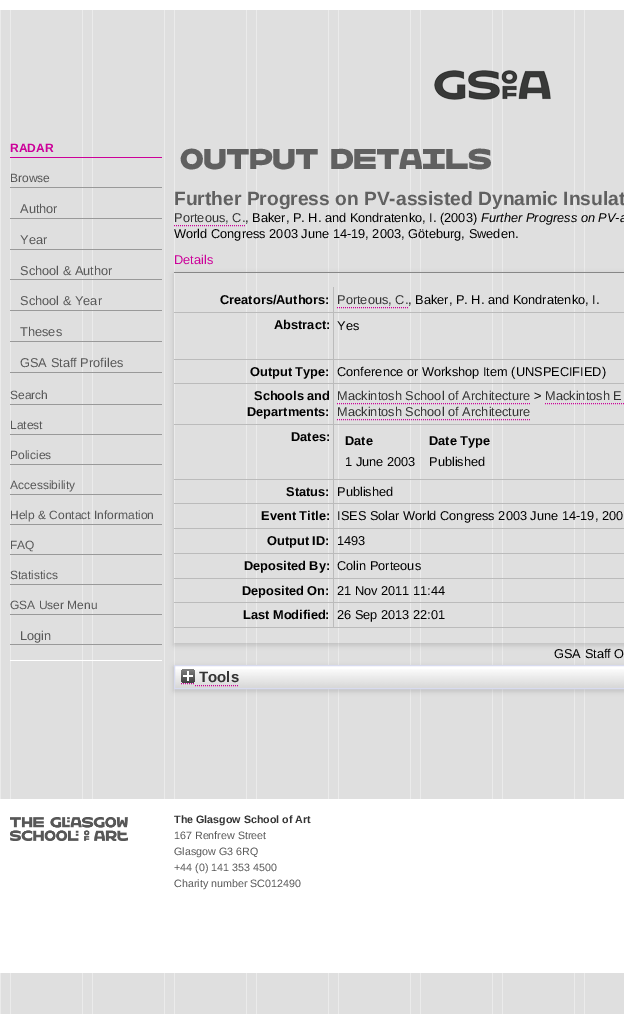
%!PS
<< /PageSize [624 1014] /PageUsesTransparency true >> setpagedevice
/alpha { dup .setfillconstantalpha .setstrokeconstantalpha } def
/roundrect { 5 dict begin { /r /h /w /y /x } { exch def } forall
  x r add y moveto x w add y 2 copy h add r arct x w add y h add x 1 index r arct
  x y h add x y r arct x y 2 copy exch w add exch r arct closepath end } def
/shadow { 12 dict begin { /a /b /q /h /w /y /x } { exch def } forall gsave /was 0 def
  9 -2 -9 { dup b mul 4 div /e exch def 1 sub .425 mul 2.718 exch exp 1 add a .99 .min exch div /now exch def
    1 1 now sub 1 was sub div sub alpha /was now def
    w h .min e 2 mul add 0 gt { x e sub y e sub w e 2 mul add h e 2 mul add
      q e add b .6 mul add w h .min 2 div e add .min 0 .max roundrect fill } if } for grestore end } def
/picture { 5 dict begin { /h /w /y /x /name } { exch def } forall
  gsave x y translate w h scale
  w h 8 [w 0 0 h 0 0] name (r) file false 3 colorimage grestore end } def
0 .pushpdf14devicefilter
0 1014 translate 1 -1 scale
4 setmiterlimit
1 setgray
0 0 624 1014 rectfill
(img1.rgb) 0 10 624 1004 picture
(img2.rgb) 434 70 117 30 picture
10 660 152 1 rectfill
0.8 0 0.6 setrgbcolor
10 157 152 1 rectfill
/LiberationSans-Bold [12 0 0 -12 0 0] selectfont
10 152 moveto (RADAR) show
0.6 setgray
10 187 152 1 rectfill
/LiberationSans-Regular [12 0 0 -12 0 0] selectfont
0.341 setgray
10 182 moveto (Browse) show
0.6 setgray
10 218 152 1 rectfill
/LiberationSans-Regular [12.8 0 0 -12.8 0 0] selectfont
0.341 setgray
20 213 moveto (Author) show
0.6 setgray
10 249 152 1 rectfill
0.341 setgray
20 244 moveto (Year) show
0.6 setgray
10 279 152 1 rectfill
0.341 setgray
20 275 moveto (School & Author) show
0.6 setgray
10 310 152 1 rectfill
0.341 setgray
20 305 moveto (School & Year) show
0.6 setgray
10 341 152 1 rectfill
0.341 setgray
20 336 moveto (Theses) show
0.6 setgray
10 372 152 1 rectfill
0.341 setgray
20 367 moveto (GSA Staff Profiles) show
0.6 setgray
10 404 152 1 rectfill
/LiberationSans-Regular [12 0 0 -12 0 0] selectfont
0.341 setgray
10 399 moveto (Search) show
0.6 setgray
10 434 152 1 rectfill
0.341 setgray
10 429 moveto (Latest) show
0.6 setgray
10 464 152 1 rectfill
0.341 setgray
10 459 moveto (Policies) show
0.6 setgray
10 494 152 1 rectfill
0.341 setgray
10 489 moveto (Accessibility) show
0.6 setgray
10 524 152 1 rectfill
0.341 setgray
10 519 moveto (Help & Contact Information) show
0.6 setgray
10 554 152 1 rectfill
0.341 setgray
10 549 moveto (FAQ) show
0.6 setgray
10 584 152 1 rectfill
0.341 setgray
10 579 moveto (Statistics) show
0.6 setgray
10 614 152 1 rectfill
0.341 setgray
10 609 moveto (GSA User Menu) show
0.6 setgray
10 644 152 1 rectfill
/LiberationSans-Regular [12.8 0 0 -12.8 0 0] selectfont
0.341 setgray
20 640 moveto (Login) show
/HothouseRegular-Bold [23 0 0 -23 0 0] selectfont
0.376 setgray
180 169 moveto (OUTPUT DETAILS) show
/LiberationSans-Bold [19.2 0 0 -19.2 0 0] selectfont
174 205 moveto (Further Progress on PV-assisted Dynamic Insulat) show
/LiberationSans-Regular [12.8 0 0 -12.8 0 0] selectfont
0.2 setgray
174 222 moveto (Porteous, C.) show
0.8 0 0.6 setrgbcolor
[1 1] 0 setdash
newpath 174 225.5 moveto 245 225.5 lineto stroke
0 setgray
245 222 moveto (, Baker, P. H. and Kondratenko, I. \(2003\)) show
/LiberationSans-Italic [12.8 0 0 -12.8 0 0] selectfont
481 222 moveto (Further Progress on PV-a) show
/LiberationSans-Regular [12.8 0 0 -12.8 0 0] selectfont
174 238 moveto (World Congress 2003 June 14-19, 2003, Göteburg, Sweden.) show
gsave
newpath 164 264 moveto 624 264 lineto 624 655 lineto 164 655 lineto closepath 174 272 moveto 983 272 lineto 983 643 lineto 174 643 lineto closepath eoclip newpath
0.392 setgray
174 274 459 371 0 3 0.3 shadow
grestore
0.8 0 0.6 setrgbcolor
174 264 moveto (Details) show
0.529 setgray
174 272 450 1 rectfill
0.733 setgray
333 627 291 1 rectfill
333 602 1 26 rectfill
333 602 291 1 rectfill
333 578 1 25 rectfill
333 578 291 1 rectfill
333 553 1 26 rectfill
333 553 291 1 rectfill
333 528 1 26 rectfill
333 528 291 1 rectfill
333 503 1 26 rectfill
333 503 291 1 rectfill
333 479 1 25 rectfill
333 479 291 1 rectfill
333 424 1 56 rectfill
333 424 291 1 rectfill
333 383 1 42 rectfill
333 383 291 1 rectfill
333 359 1 25 rectfill
333 359 291 1 rectfill
333 312 1 48 rectfill
333 312 291 1 rectfill
333 287 1 26 rectfill
174 312 160 1 rectfill
/LiberationSans-Bold [12.8 0 0 -12.8 0 0] selectfont
0 setgray
220 304 moveto (Creators/Authors:) show
/LiberationSans-Regular [12.8 0 0 -12.8 0 0] selectfont
0.2 setgray
337 304 moveto (Porteous, C.) show
0.8 0 0.6 setrgbcolor
newpath 337 307.5 moveto 408 307.5 lineto stroke
0 setgray
408 304 moveto (, Baker, P. H. and Kondratenko, I.) show
0.733 setgray
174 359 160 1 rectfill
/LiberationSans-Bold [12.8 0 0 -12.8 0 0] selectfont
0 setgray
274 329 moveto (Abstract:) show
/LiberationSans-Regular [12.8 0 0 -12.8 0 0] selectfont
337 330 moveto (Yes) show
0.733 setgray
174 383 160 1 rectfill
/LiberationSans-Bold [12.8 0 0 -12.8 0 0] selectfont
0 setgray
250 376 moveto (Output Type:) show
/LiberationSans-Regular [12.8 0 0 -12.8 0 0] selectfont
337 376 moveto (Conference or Workshop Item \(UNSPECIFIED\)) show
0.733 setgray
174 424 160 1 rectfill
/LiberationSans-Bold [12.8 0 0 -12.8 0 0] selectfont
0 setgray
254 400 moveto (Schools and) show
247 416 moveto (Departments:) show
/LiberationSans-Regular [12.8 0 0 -12.8 0 0] selectfont
0.2 setgray
337 400 moveto (Mackintosh School of Architecture) show
0.8 0 0.6 setrgbcolor
newpath 337 403.5 moveto 531 403.5 lineto stroke
0 setgray
534 400 moveto (>) show
0.2 setgray
545 400 moveto (Mackintosh E) show
0.8 0 0.6 setrgbcolor
newpath 545 403.5 moveto 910 403.5 lineto stroke
0.2 setgray
337 416 moveto (Mackintosh School of Architecture) show
0.8 0 0.6 setrgbcolor
newpath 337 419.5 moveto 531 419.5 lineto stroke
0.733 setgray
174 479 160 1 rectfill
/LiberationSans-Bold [12.8 0 0 -12.8 0 0] selectfont
0 setgray
291 441 moveto (Dates:) show
345 445 moveto (Date) show
429 445 moveto (Date Type) show
/LiberationSans-Regular [12.8 0 0 -12.8 0 0] selectfont
345 466 moveto (1 June 2003) show
429 466 moveto (Published) show
0.733 setgray
174 503 160 1 rectfill
/LiberationSans-Bold [12.8 0 0 -12.8 0 0] selectfont
0 setgray
286 496 moveto (Status:) show
/LiberationSans-Regular [12.8 0 0 -12.8 0 0] selectfont
337 496 moveto (Published) show
0.733 setgray
174 528 160 1 rectfill
/LiberationSans-Bold [12.8 0 0 -12.8 0 0] selectfont
0 setgray
261 520 moveto (Event Title:) show
/LiberationSans-Regular [12.8 0 0 -12.8 0 0] selectfont
337 520 moveto (ISES Solar World Congress 2003 June 14-19, 200) show
0.733 setgray
174 553 160 1 rectfill
/LiberationSans-Bold [12.8 0 0 -12.8 0 0] selectfont
0 setgray
267 545 moveto (Output ID:) show
/LiberationSans-Regular [12.8 0 0 -12.8 0 0] selectfont
337 545 moveto (1493) show
0.733 setgray
174 578 160 1 rectfill
/LiberationSans-Bold [12.8 0 0 -12.8 0 0] selectfont
0 setgray
244 570 moveto (Deposited By:) show
/LiberationSans-Regular [12.8 0 0 -12.8 0 0] selectfont
337 570 moveto (Colin Porteous) show
0.733 setgray
174 602 160 1 rectfill
/LiberationSans-Bold [12.8 0 0 -12.8 0 0] selectfont
0 setgray
242 595 moveto (Deposited On:) show
/LiberationSans-Regular [12.8 0 0 -12.8 0 0] selectfont
337 595 moveto (21 Nov 2011 11:44) show
0.733 setgray
174 627 160 1 rectfill
/LiberationSans-Bold [12.8 0 0 -12.8 0 0] selectfont
0 setgray
243 619 moveto (Last Modified:) show
/LiberationSans-Regular [12.8 0 0 -12.8 0 0] selectfont
337 619 moveto (26 Sep 2013 22:01) show
0.392 setgray
174 667 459 24 0 3 0.3 shadow
0 setgray
554 658 moveto (GSA Staff O) show
1 setgray
175 666 449 3 rectfill
(img3.rgb) 175 669 449 19 picture
0.847 0.859 0.937 setrgbcolor
[] 0 setdash
174.5 665.5 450 23 rectstroke
(img4.rgb) 181 669 14 14 picture
/LiberationSans-Bold [15 0 0 -15 0 0] selectfont
0.2 setgray
199 682 moveto (Tools) show
0.8 0 0.6 setrgbcolor
[1 1] 0 setdash
newpath 181 683.5 moveto 195 683.5 lineto 195 685.5 moveto 238 685.5 lineto stroke
1 setgray
0 799 624 174 rectfill
(img5.rgb) 10 817 118 24 picture
/LiberationSans-Bold [10.7 0 0 -10.7 0 0] selectfont
0.2 setgray
174 823 moveto (The Glasgow School of Art) show
/LiberationSans-Regular [10.7 0 0 -10.7 0 0] selectfont
0.341 setgray
174 839 moveto (167 Renfrew Street) show
174 855 moveto (Glasgow G3 6RQ) show
174 871 moveto (+44 \(0\) 141 353 4500) show
174 887 moveto (Charity number SC012490) show
.poppdf14devicefilter showpage
